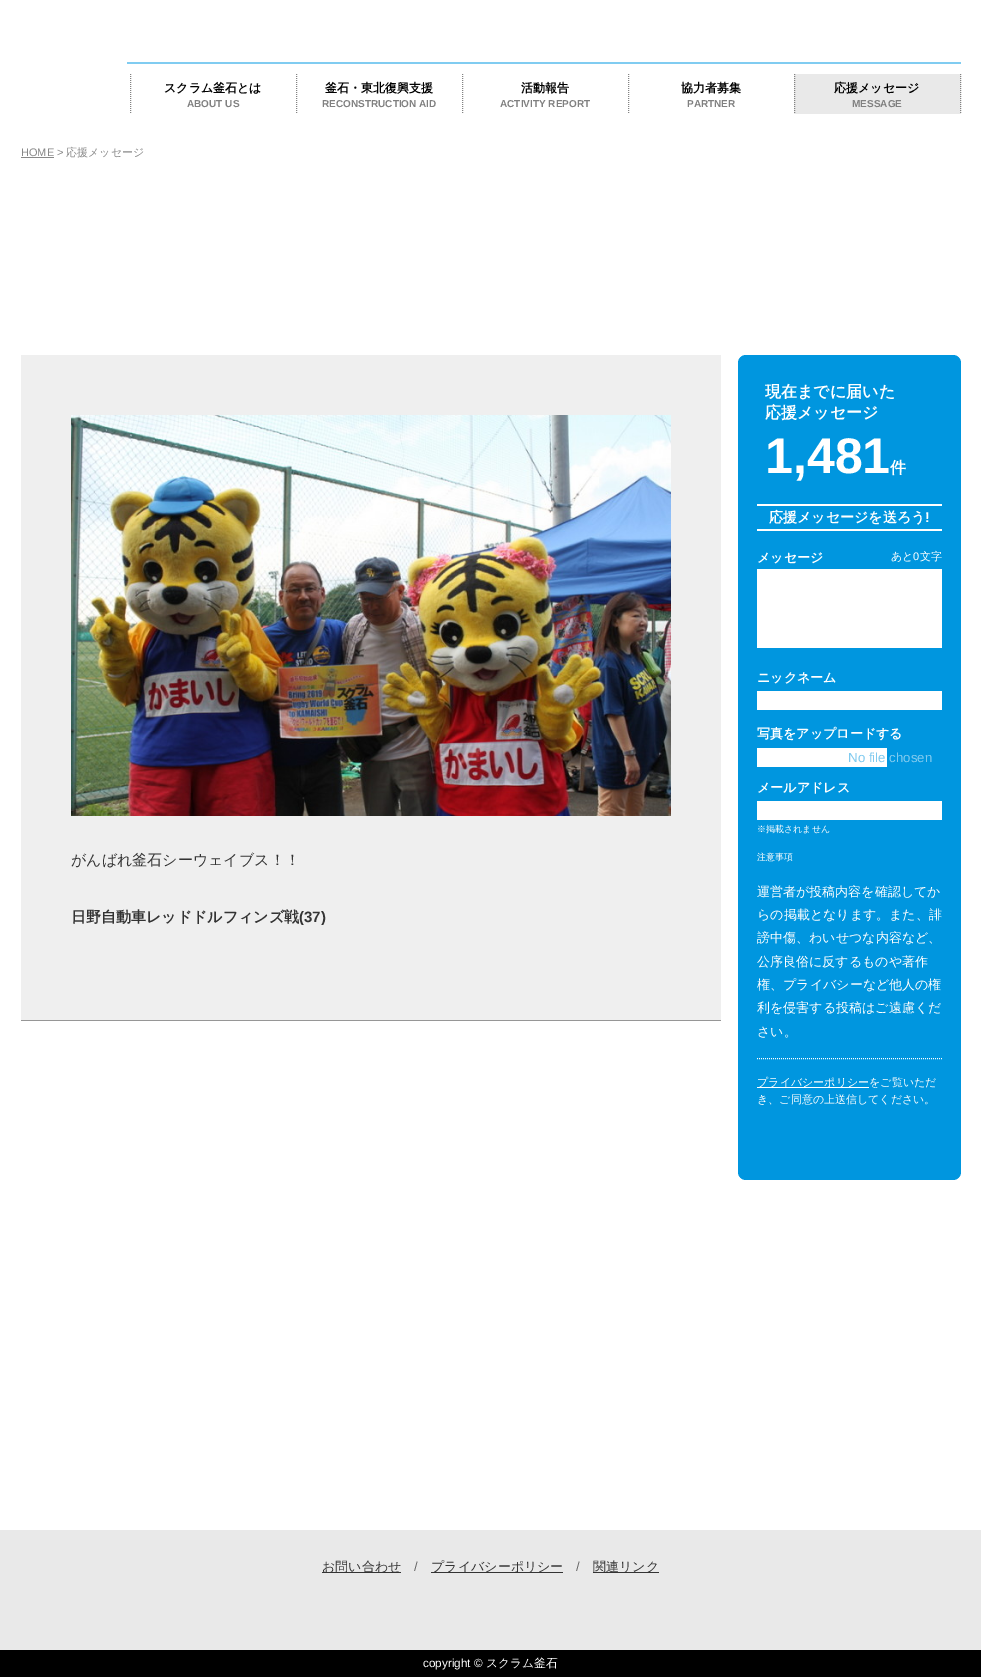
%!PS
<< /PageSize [981 1678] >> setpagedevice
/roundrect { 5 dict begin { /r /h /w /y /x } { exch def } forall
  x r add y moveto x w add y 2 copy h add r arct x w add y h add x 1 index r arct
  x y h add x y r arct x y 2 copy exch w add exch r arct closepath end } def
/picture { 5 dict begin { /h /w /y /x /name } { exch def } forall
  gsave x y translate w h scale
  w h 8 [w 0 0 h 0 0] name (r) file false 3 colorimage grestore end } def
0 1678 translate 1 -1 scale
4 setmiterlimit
1 setgray
0 0 981 1678 rectfill
0.502 0.8 0.945 setrgbcolor
127 62 834 2 rectfill
0.514 setgray
[1 1] 0 setdash
newpath 130.5 74 moveto 130.5 114 lineto stroke
/WenQuanYiZenHei-Bold [12 0 0 -12 0 0] selectfont
0 setgray
164 92 moveto (スクラム釜石とは) show
/LiberationSans-Bold [10 0 0 -10 0 0] selectfont
0.502 setgray
187 107 moveto (ABOUT US) show
0.514 setgray
newpath 296.5 74 moveto 296.5 114 lineto stroke
/WenQuanYiZenHei-Bold [12 0 0 -12 0 0] selectfont
0 setgray
325 92 moveto (釜石・東北復興支援) show
/LiberationSans-Bold [10 0 0 -10 0 0] selectfont
0.502 setgray
322 107 moveto (RECONSTRUCTION AID) show
0.514 setgray
newpath 462.5 74 moveto 462.5 114 lineto stroke
/WenQuanYiZenHei-Bold [12 0 0 -12 0 0] selectfont
0 setgray
521 92 moveto (活動報告) show
/LiberationSans-Bold [10 0 0 -10 0 0] selectfont
0.502 setgray
500 107 moveto (ACTIVITY REPORT) show
0.514 setgray
newpath 628.5 74 moveto 628.5 114 lineto stroke
/WenQuanYiZenHei-Bold [12 0 0 -12 0 0] selectfont
0 setgray
681 92 moveto (協力者募集) show
/LiberationSans-Bold [10 0 0 -10 0 0] selectfont
0.502 setgray
687 107 moveto (PARTNER) show
0.914 setgray
794 74 167 40 rectfill
0.514 setgray
newpath 960.5 74 moveto 960.5 114 lineto stroke
newpath 794.5 74 moveto 794.5 114 lineto stroke
/WenQuanYiZenHei-Bold [12 0 0 -12 0 0] selectfont
0 setgray
834 92 moveto (応援メッセージ) show
/LiberationSans-Bold [10 0 0 -10 0 0] selectfont
0.502 setgray
852 107 moveto (MESSAGE) show
/LiberationSans-Regular [11 0 0 -11 0 0] selectfont
0.533 setgray
21 156 moveto (HOME >) show
21 157 33 1 rectfill
/WenQuanYiZenHei-Medium [11 0 0 -11 0 0] selectfont
66 156 moveto (応援メッセージ) show
0.937 setgray
21 355 700 665 rectfill
(img1.rgb) 71 415 600 401 picture
/WenQuanYiZenHei-Medium [15 0 0 -15 0 0] selectfont
0.2 setgray
71 865 moveto (がんばれ釜石シーウェイブス！！) show
/WenQuanYiZenHei-Bold [15 0 0 -15 0 0] selectfont
71 922 moveto (日野自動車レッドドルフィンズ戦) show
/LiberationSans-Bold [15 0 0 -15 0 0] selectfont
299 922 moveto (\(37\)) show
0.588 setgray
21 1020 700 1 rectfill
0 0.588 0.875 setrgbcolor
738 355 223 825 8 roundrect fill
/WenQuanYiZenHei-Bold [16 0 0 -16 0 0] selectfont
1 setgray
765 397 moveto (現在までに届いた) show
765 418 moveto (応援メッセージ) show
/LiberationSans-Bold [50 0 0 -50 0 0] selectfont
765 473 moveto (1,481) show
/WenQuanYiZenHei-Bold [16 0 0 -16 0 0] selectfont
890 473 moveto (件) show
757 504 185 2 rectfill
757 529 185 2 rectfill
/WenQuanYiZenHei-Bold [14 0 0 -14 0 0] selectfont
769 522 moveto (応援メッセージを送ろう) show
/LiberationSans-Bold [14 0 0 -14 0 0] selectfont
925 522 moveto (!) show
/WenQuanYiZenHei-Bold [13 0 0 -13 0 0] selectfont
757 562 moveto (メッセージ) show
/WenQuanYiZenHei-Medium [11 0 0 -11 0 0] selectfont
891 560 moveto (あと) show
/LiberationSans-Regular [11 0 0 -11 0 0] selectfont
913 560 moveto (0) show
/WenQuanYiZenHei-Medium [11 0 0 -11 0 0] selectfont
920 560 moveto (文字) show
757 569 185 79 rectfill
/WenQuanYiZenHei-Bold [13 0 0 -13 0 0] selectfont
757 682 moveto (ニックネーム) show
757 691 185 19 rectfill
757 738 moveto (写真をアップロードする) show
757 748 130 19 rectfill
/LiberationSans-Regular [13.25 0 0 -13.25 0 0] selectfont
0.498 0.792 0.937 setrgbcolor
848 762 moveto (No file chosen) show
/WenQuanYiZenHei-Bold [13 0 0 -13 0 0] selectfont
1 setgray
757 792 moveto (メールアドレス) show
757 801 185 19 rectfill
/WenQuanYiZenHei-Medium [9 0 0 -9 0 0] selectfont
757 832 moveto (※掲載されません) show
757 860 moveto (注意事項) show
/WenQuanYiZenHei-Medium [13 0 0 -13 0 0] selectfont
757 896 moveto (運営者が投稿内容を確認してか) show
757 919 moveto (らの掲載となります。また、誹) show
757 942 moveto (謗中傷、わいせつな内容など、) show
757 966 moveto (公序良俗に反するものや著作) show
757 989 moveto (権、プライバシーなど他人の権) show
757 1012 moveto (利を侵害する投稿はご遠慮くだ) show
757 1036 moveto (さい。) show
newpath 757 1058.5 moveto 942 1058.5 lineto stroke
757 1087 112 1 rectfill
/WenQuanYiZenHei-Medium [11 0 0 -11 0 0] selectfont
757 1086 moveto (プライバシーポリシーをご覧いただ) show
757 1103 moveto (き、ご同意の上送信してください。) show
0.914 setgray
0 1530 981 120 rectfill
0.2 setgray
322 1572 79 1 rectfill
/WenQuanYiZenHei-Medium [13 0 0 -13 0 0] selectfont
322 1571 moveto (お問い合わせ) show
/LiberationSans-Regular [13 0 0 -13 0 0] selectfont
0.4 setgray
414 1571 moveto (/) show
0.2 setgray
431 1572 132 1 rectfill
/WenQuanYiZenHei-Medium [13 0 0 -13 0 0] selectfont
431 1571 moveto (プライバシーポリシー) show
/LiberationSans-Regular [13 0 0 -13 0 0] selectfont
0.4 setgray
576 1571 moveto (/) show
0.2 setgray
593 1572 66 1 rectfill
/WenQuanYiZenHei-Medium [13 0 0 -13 0 0] selectfont
593 1571 moveto (関連リンク) show
0 setgray
0 1650 981 27 rectfill
/LiberationSans-Regular [11.75 0 0 -11.75 0 0] selectfont
1 setgray
423 1667 moveto (copyright ©) show
/WenQuanYiZenHei-Medium [11.75 0 0 -11.75 0 0] selectfont
486 1667 moveto (スクラム釜石) show
showpage
